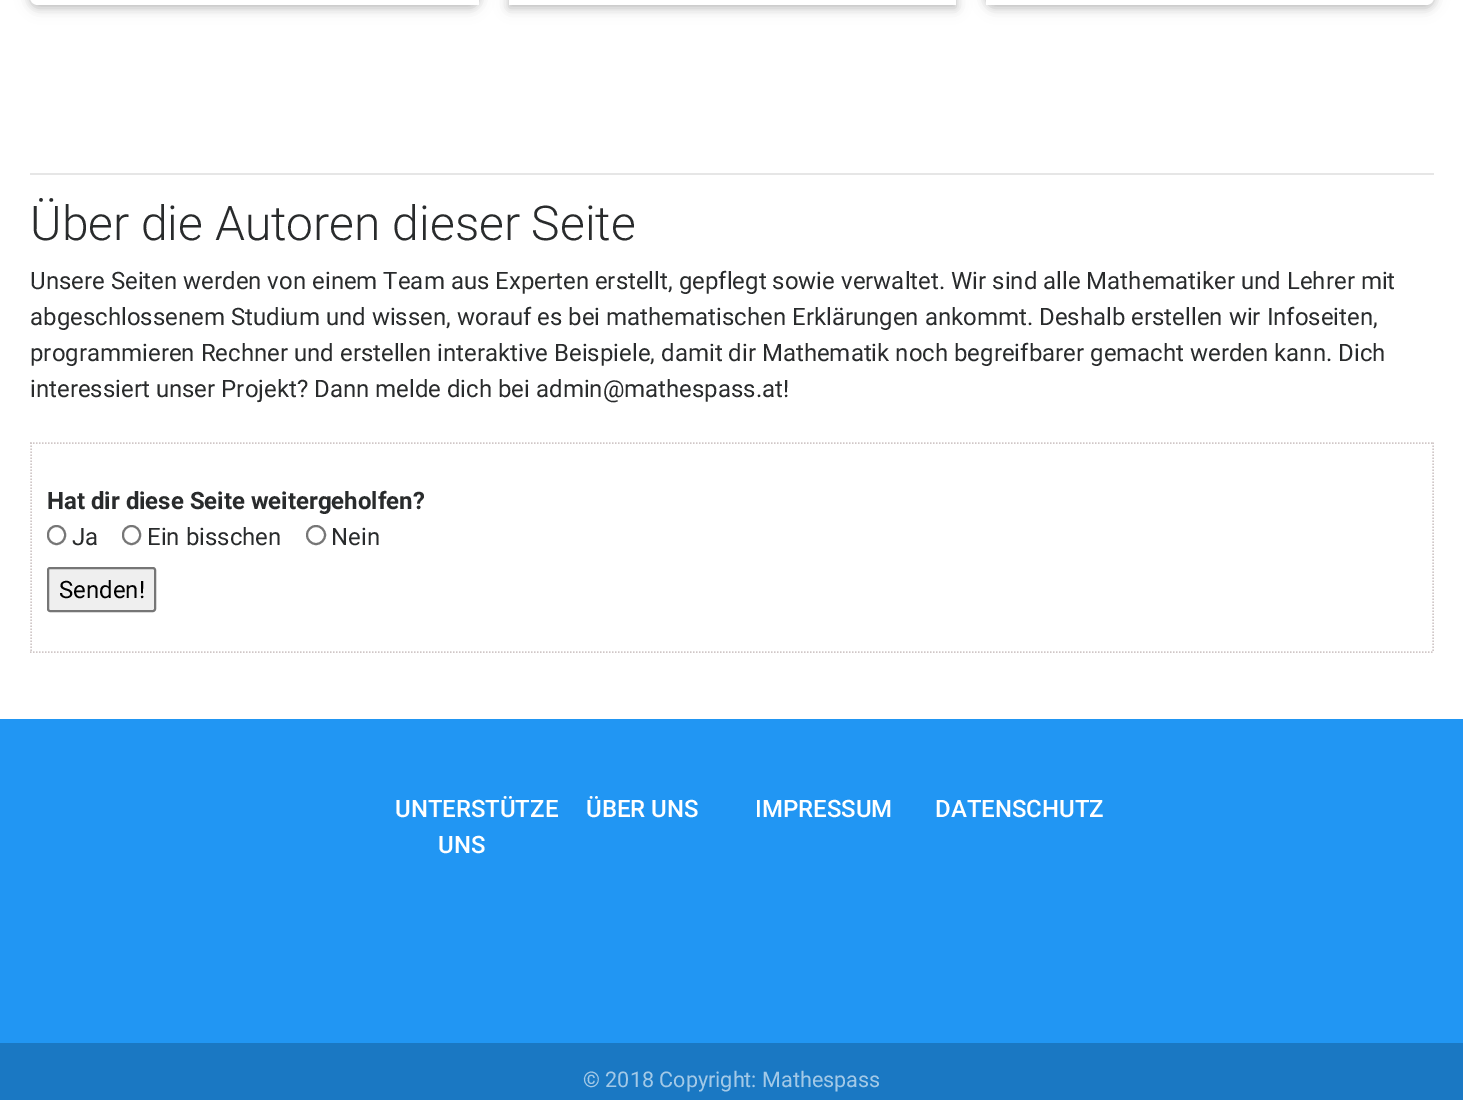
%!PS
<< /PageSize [1463 1100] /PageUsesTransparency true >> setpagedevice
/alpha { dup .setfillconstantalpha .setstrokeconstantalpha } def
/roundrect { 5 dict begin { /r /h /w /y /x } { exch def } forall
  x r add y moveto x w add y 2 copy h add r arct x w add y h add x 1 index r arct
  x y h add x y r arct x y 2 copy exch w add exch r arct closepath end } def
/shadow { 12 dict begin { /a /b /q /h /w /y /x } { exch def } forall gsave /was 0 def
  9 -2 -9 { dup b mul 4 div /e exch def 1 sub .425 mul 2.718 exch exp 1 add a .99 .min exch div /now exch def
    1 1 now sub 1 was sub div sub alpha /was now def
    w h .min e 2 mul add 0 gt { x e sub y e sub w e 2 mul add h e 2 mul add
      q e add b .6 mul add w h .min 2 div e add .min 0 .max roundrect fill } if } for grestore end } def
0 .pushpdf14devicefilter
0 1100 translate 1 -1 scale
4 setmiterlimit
1 setgray
0 0 1463 1100 rectfill
0 setgray
30 -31 449 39 8 7.5 0.12 shadow
30 -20 449 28 8 4 0.16 shadow
1 setgray
newpath 38 -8 moveto 479 -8 lineto 479 5 lineto 38 5 lineto 33.5 5 30 1.5 30 -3 curveto 30 0 lineto 30 -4.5 33.5 -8 38 -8 curveto closepath fill
0 setgray
509 -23 447 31 0 7.5 0.12 shadow
509 -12 447 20 0 4 0.16 shadow
1 setgray
509 0 447 5 rectfill
0 setgray
986 -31 448 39 8 7.5 0.12 shadow
986 -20 448 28 8 4 0.16 shadow
1 setgray
newpath 986 -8 moveto 1426 -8 lineto 1430.5 -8 1434 -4.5 1434 0 curveto 1434 -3 lineto 1434 1.5 1430.5 5 1426 5 curveto 986 5 lineto closepath fill
0.902 setgray
30 173 1404 2 rectfill
/Roboto-Light [48 0 0 -48 0 0] selectfont
0.161 0.169 0.173 setrgbcolor
30 240 moveto (Über die Autoren dieser Seite) show
/Roboto-Regular [24 0 0 -24 0 0] selectfont
30 289 moveto (Unsere Seiten werden von einem Team aus Experten erstellt, gepflegt sowie verwaltet. Wir sind alle Mathematiker und Lehrer mit) show
30 325 moveto (abgeschlossenem Studium und wissen, worauf es bei mathematischen Erklärungen ankommt. Deshalb erstellen wir Infoseiten,) show
30 361 moveto (programmieren Rechner und erstellen interaktive Beispiele, damit dir Mathematik noch begreifbarer gemacht werden kann. Dich) show
30 397 moveto (interessiert unser Projekt? Dann melde dich bei admin@mathespass.at!) show
0.816 0.78 0.78 setrgbcolor
1.5 setlinewidth
[1.5 1.5] 0 setdash
newpath 30 443 moveto 1434 443 lineto stroke
newpath 1433 442.5 moveto 1433 652.5 lineto stroke
newpath 30 652 moveto 1434 652 lineto stroke
newpath 31 442.5 moveto 31 652.5 lineto stroke
/Roboto-Bold [24 0 0 -24 0 0] selectfont
0.161 0.169 0.173 setrgbcolor
47 509 moveto (Hat dir diese Seite weitergeholfen?) show
0.463 setgray
2 setlinewidth
[] 0 setdash
48 526 17 18 8.5 roundrect stroke
/Roboto-Regular [24 0 0 -24 0 0] selectfont
0.161 0.169 0.173 setrgbcolor
72 545 moveto (Ja) show
0.463 setgray
123 526 17 18 8.5 roundrect stroke
0.161 0.169 0.173 setrgbcolor
147 545 moveto (Ein bisschen) show
0.463 setgray
newpath 316 535 9 0 360 arc closepath stroke
0.161 0.169 0.173 setrgbcolor
331 545 moveto (Nein) show
0.937 setgray
48 568 107 43 2 roundrect gsave fill grestore
0.463 setgray
stroke
0 setgray
59 598 moveto (Senden!) show
0.129 0.588 0.953 setrgbcolor
0 719 1463 324 rectfill
/Roboto-Medium [24 0 0 -24 0 0] selectfont
1 setgray
395 817 moveto (UNTERSTÜTZE) show
438 853 moveto (UNS) show
586 817 moveto (ÜBER UNS) show
755 817 moveto (IMPRESSUM) show
935 817 moveto (DATENSCHUTZ) show
0.102 0.471 0.765 setrgbcolor
0 1043 1463 57 rectfill
/Roboto-Regular [21.6 0 0 -21.6 0 0] selectfont
0.639 0.788 0.906 setrgbcolor
583 1087 moveto (© 2018 Copyright: Mathespass) show
.poppdf14devicefilter showpage
